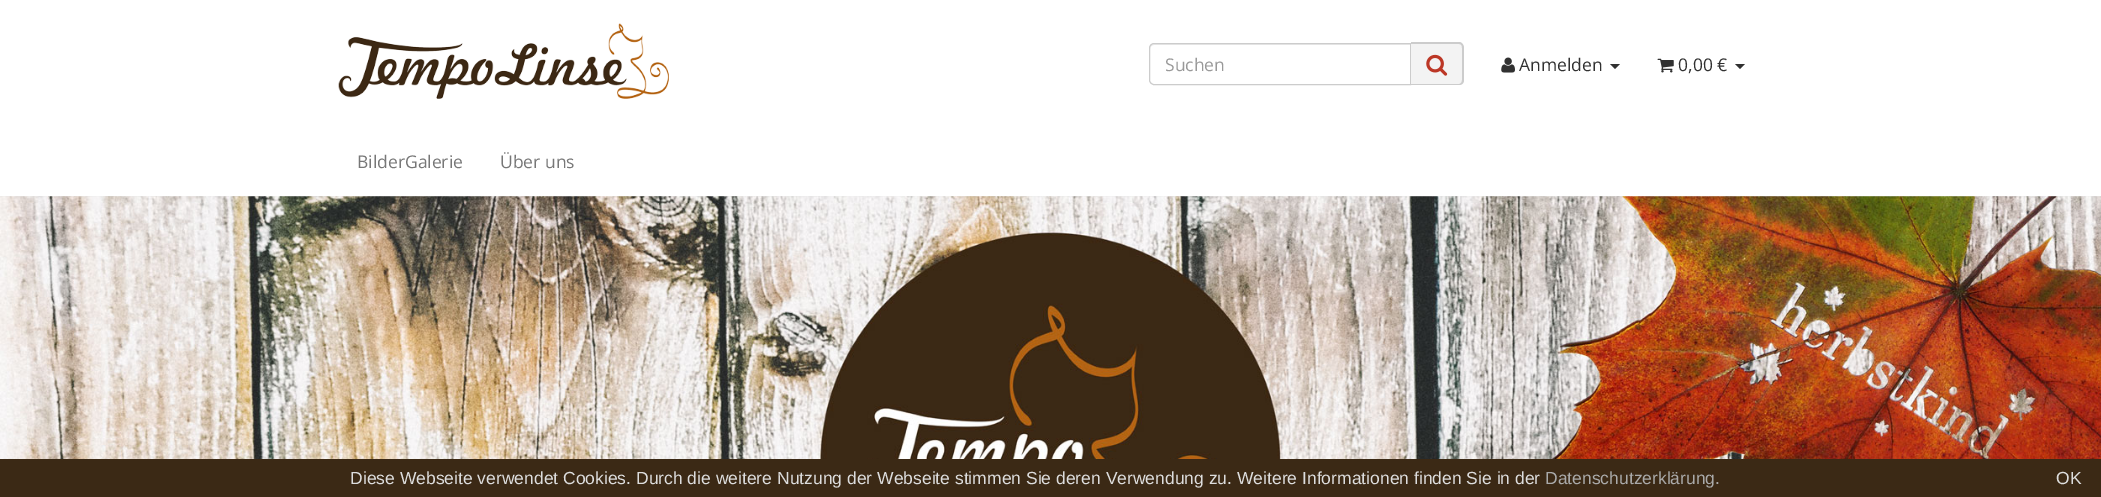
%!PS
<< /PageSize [2101 497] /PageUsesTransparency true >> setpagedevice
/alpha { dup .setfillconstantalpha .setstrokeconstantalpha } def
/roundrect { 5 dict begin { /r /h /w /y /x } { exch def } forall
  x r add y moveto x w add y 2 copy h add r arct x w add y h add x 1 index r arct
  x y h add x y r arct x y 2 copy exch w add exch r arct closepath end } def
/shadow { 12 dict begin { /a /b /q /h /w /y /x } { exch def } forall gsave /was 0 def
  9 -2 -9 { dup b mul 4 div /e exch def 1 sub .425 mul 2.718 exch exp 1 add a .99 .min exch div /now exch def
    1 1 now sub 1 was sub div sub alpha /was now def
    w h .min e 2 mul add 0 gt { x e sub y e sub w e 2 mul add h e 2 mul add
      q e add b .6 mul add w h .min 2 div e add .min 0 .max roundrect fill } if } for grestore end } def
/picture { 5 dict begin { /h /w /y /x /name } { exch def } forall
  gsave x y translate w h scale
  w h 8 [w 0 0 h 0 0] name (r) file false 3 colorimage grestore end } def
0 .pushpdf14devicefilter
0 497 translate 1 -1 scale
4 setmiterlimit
1 setgray
0 0 2101 497 rectfill
0.416 setgray
-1 -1 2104 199 0 3 0.1 shadow
1 setgray
0 0 2101 196 rectfill
(img1.rgb) 338 23 331 76 picture
0.925 setgray
newpath 1154 45 moveto 1410 45 lineto 1410 44 lineto 1154 44 lineto 1151 44 1150 46 1150 49 curveto 1150 47 1152 45 1154 45 curveto closepath fill
0.8 setgray
newpath 1154 43.5 moveto 1410.5 43.5 lineto 1410.5 84.5 lineto 1154 84.5 lineto 1151.5 84.5 1149.5 82.5 1149.5 80 curveto 1149.5 48 lineto 1149.5 45.5 1151.5 43.5 1154 43.5 curveto closepath stroke
/OpenSans-Regular [17.5 0 0 -17.5 0 0] selectfont
0.6 setgray
1165 71 moveto (Suchen) show
0.953 setgray
newpath 1411 43 moveto 1459 43 lineto 1462 43 1464 45 1464 48 curveto 1464 80 lineto 1464 83 1462 85 1459 85 curveto 1411 85 lineto closepath fill
0.8 setgray
newpath 1411 42 moveto 1459 42 lineto 1462 42 1464 45 1464 48 curveto 1464 80 lineto 1464 83 1462 85 1459 85 curveto 1411 85 lineto closepath 1411 44 moveto 1459 44 lineto 1461 44 1462 45 1462 48 curveto 1462 80 lineto 1462 82 1461 84 1459 84 curveto 1411 84 lineto closepath eofill
(img2.rgb) 1426 54 22 22 picture
(img3.rgb) 1501 57 14 16 picture
0.192 setgray
1519 71 moveto (Anmelden) show
newpath 1610 64 moveto 1620 64 lineto 1615 69 lineto closepath fill
(img4.rgb) 1657 58 17 15 picture
1678 71 moveto (0,00 €) show
newpath 1735 64 moveto 1745 64 lineto 1740 69 lineto closepath fill
0.467 setgray
357 168 moveto (BilderGalerie) show
500 168 moveto (Über uns) show
(img5.rgb) 0 196 2101 263 picture
0.231 0.161 0.082 setrgbcolor
0 459 2101 38 rectfill
/LiberationSans-Regular [17.5 0 0 -17.5 0 0] selectfont
0.867 setgray
350 484 moveto (Diese Webseite verwendet Cookies. Durch die weitere Nutzung der Webseite stimmen Sie deren Verwendung zu. Weitere Informationen finden Sie in der) show
0.667 setgray
1545 484 moveto (Datenschutzerklärung.) show
0.867 setgray
2056 484 moveto (OK) show
.poppdf14devicefilter showpage
